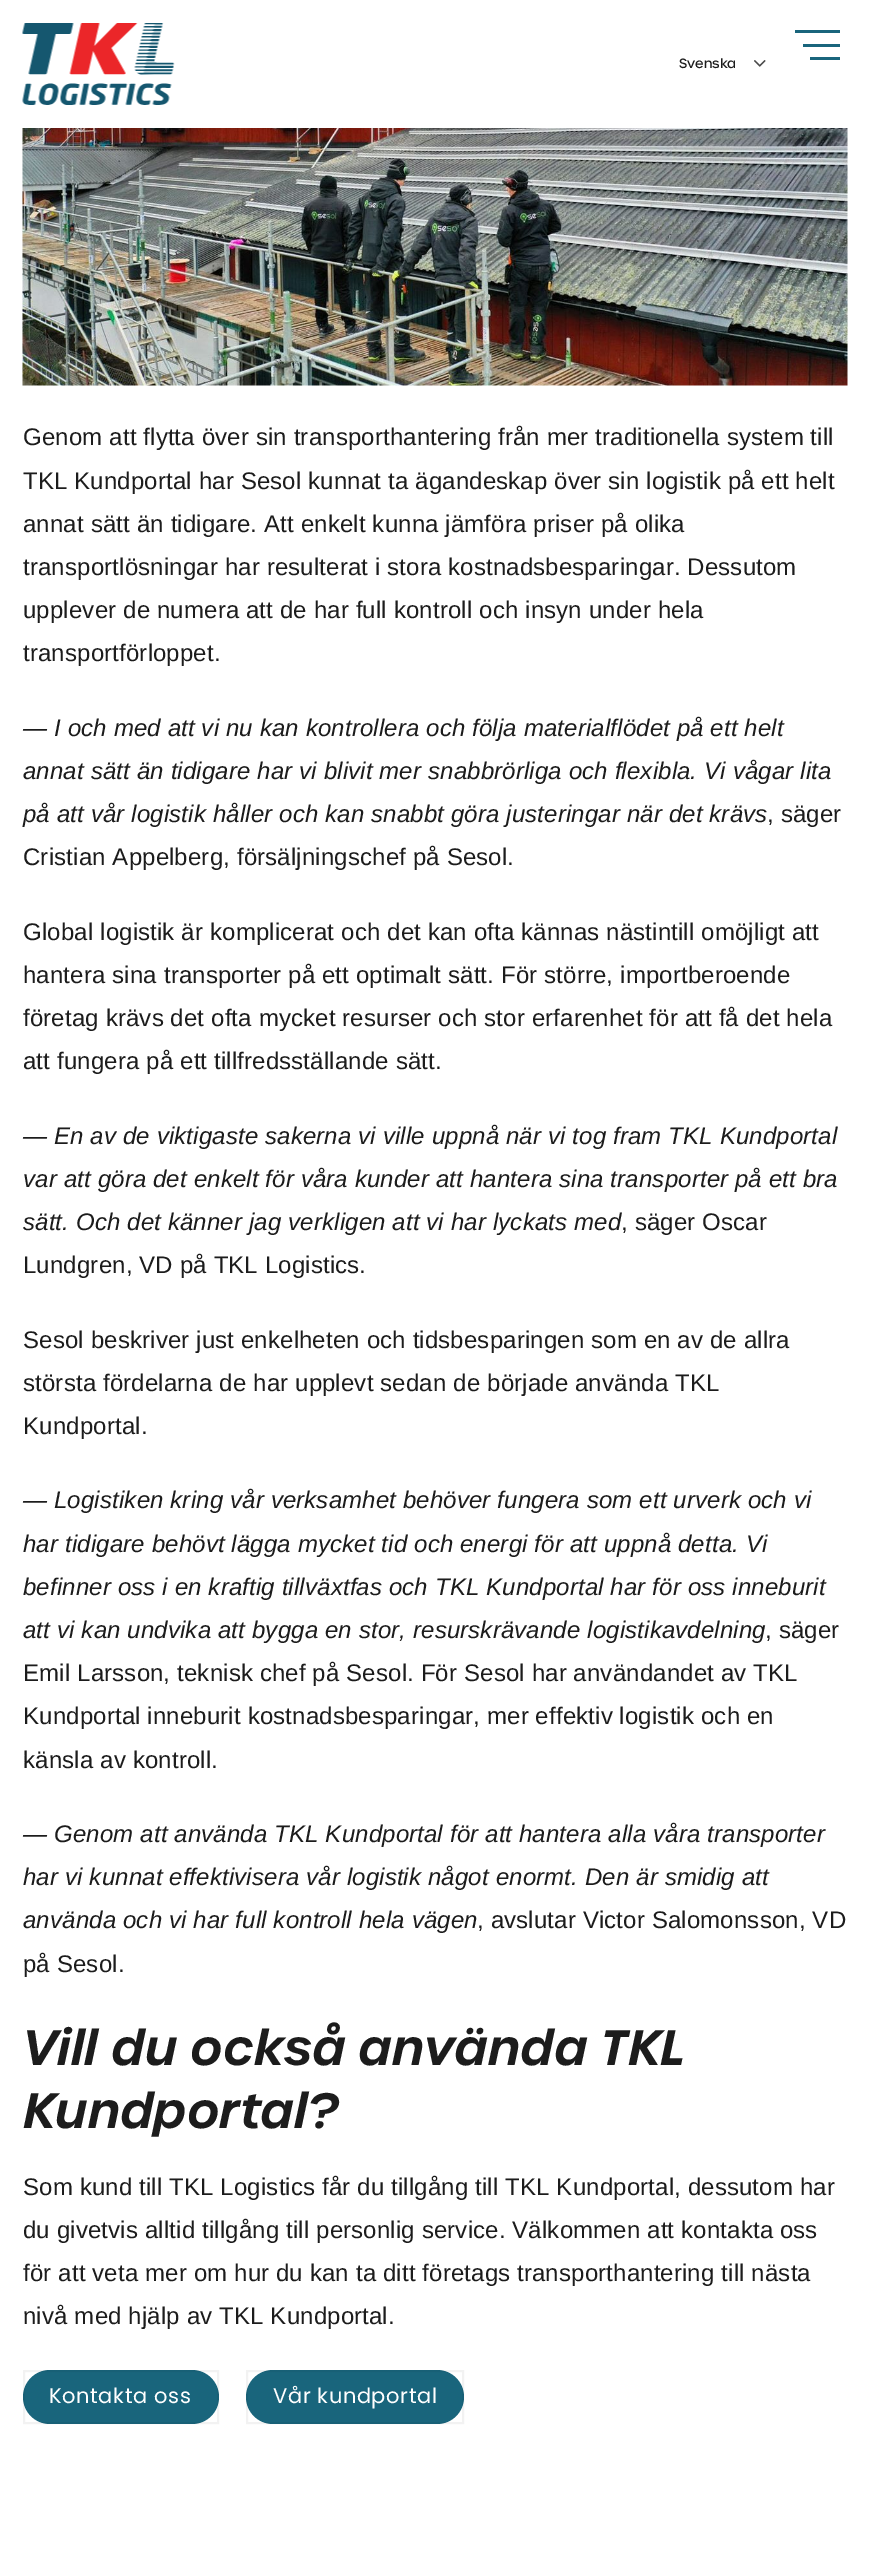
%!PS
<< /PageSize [870 2552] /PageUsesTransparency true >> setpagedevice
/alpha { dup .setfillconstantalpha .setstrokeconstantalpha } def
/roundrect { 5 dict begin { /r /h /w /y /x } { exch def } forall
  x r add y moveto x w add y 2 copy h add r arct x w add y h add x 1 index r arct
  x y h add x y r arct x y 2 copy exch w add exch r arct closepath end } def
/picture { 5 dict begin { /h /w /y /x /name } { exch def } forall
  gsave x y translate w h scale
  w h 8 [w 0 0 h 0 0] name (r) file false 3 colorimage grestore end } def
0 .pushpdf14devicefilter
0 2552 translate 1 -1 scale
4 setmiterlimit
1 setgray
0 0 870 2552 rectfill
(img1.rgb) 22 23 153 82 picture
0.098 0.396 0.486 setrgbcolor
795 30 45 3 rectfill
803 44 37 3 rectfill
810 57 30 3 rectfill
/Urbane-Medium [13 0 0 -13 0 0] selectfont
0.11 setgray
679 68 moveto (Svenska) show
(img2.rgb) 754 60 12 7 picture
(img3.rgb) 22 128 826 258 picture
/LiberationSans-Regular [24 0 0 -24 0 0] selectfont
23 445 moveto 0.15 0 (Genom att flytta över sin transporthantering från mer traditionella system till) ashow
23 489 moveto 0.15 0 (TKL Kundportal har Sesol kunnat ta ägandeskap över sin logistik på ett helt) ashow
23 532 moveto 0.15 0 (annat sätt än tidigare. Att enkelt kunna jämföra priser på olika) ashow
23 575 moveto 0.15 0 (transportlösningar har resulterat i stora kostnadsbesparingar. Dessutom) ashow
23 618 moveto 0.15 0 (upplever de numera att de har full kontroll och insyn under hela) ashow
23 661 moveto 0.15 0 (transportförloppet.) ashow
/LiberationSans-Italic [24 0 0 -24 0 0] selectfont
23 736 moveto 0.15 0 (— I och med att vi nu kan kontrollera och följa materialflödet på ett helt) ashow
23 779 moveto 0.15 0 (annat sätt än tidigare har vi blivit mer snabbrörliga och flexibla. Vi vågar lita) ashow
23 822 moveto 0.15 0 (på att vår logistik håller och kan snabbt göra justeringar när det krävs) ashow
/LiberationSans-Regular [24 0 0 -24 0 0] selectfont
767 822 moveto 0.15 0 (, säger) ashow
23 865 moveto 0.15 0 (Cristian Appelberg, försäljningschef på Sesol.) ashow
23 940 moveto 0.15 0 (Global logistik är komplicerat och det kan ofta kännas nästintill omöjligt att) ashow
23 983 moveto 0.15 0 (hantera sina transporter på ett optimalt sätt. För större, importberoende) ashow
23 1026 moveto 0.15 0 (företag krävs det ofta mycket resurser och stor erfarenhet för att få det hela) ashow
23 1069 moveto 0.15 0 (att fungera på ett tillfredsställande sätt.) ashow
/LiberationSans-Italic [24 0 0 -24 0 0] selectfont
23 1144 moveto 0.15 0 (— En av de viktigaste sakerna vi ville uppnå när vi tog fram TKL Kundportal) ashow
23 1187 moveto 0.15 0 (var att göra det enkelt för våra kunder att hantera sina transporter på ett bra) ashow
23 1230 moveto 0.15 0 (sätt. Och det känner jag verkligen att vi har lyckats med) ashow
/LiberationSans-Regular [24 0 0 -24 0 0] selectfont
621 1230 moveto 0.15 0 (, säger Oscar) ashow
23 1273 moveto 0.15 0 (Lundgren, VD på TKL Logistics.) ashow
23 1348 moveto 0.15 0 (Sesol beskriver just enkelheten och tidsbesparingen som en av de allra) ashow
23 1391 moveto 0.15 0 (största fördelarna de har upplevt sedan de började använda TKL) ashow
23 1434 moveto 0.15 0 (Kundportal.) ashow
/LiberationSans-Italic [24 0 0 -24 0 0] selectfont
23 1508 moveto 0.15 0 (— Logistiken kring vår verksamhet behöver fungera som ett urverk och vi) ashow
23 1552 moveto 0.15 0 (har tidigare behövt lägga mycket tid och energi för att uppnå detta. Vi) ashow
23 1595 moveto 0.15 0 (befinner oss i en kraftig tillväxtfas och TKL Kundportal har för oss inneburit) ashow
23 1638 moveto 0.15 0 (att vi kan undvika att bygga en stor, resurskrävande logistikavdelning) ashow
/LiberationSans-Regular [24 0 0 -24 0 0] selectfont
765 1638 moveto 0.15 0 (, säger) ashow
23 1681 moveto 0.15 0 (Emil Larsson, teknisk chef på Sesol. För Sesol har användandet av TKL) ashow
23 1724 moveto 0.15 0 (Kundportal inneburit kostnadsbesparingar, mer effektiv logistik och en) ashow
23 1768 moveto 0.15 0 (känsla av kontroll.) ashow
/LiberationSans-Italic [24 0 0 -24 0 0] selectfont
23 1842 moveto 0.15 0 (— Genom att använda TKL Kundportal för att hantera alla våra transporter) ashow
23 1885 moveto 0.15 0 (har vi kunnat effektivisera vår logistik något enormt. Den är smidig att) ashow
23 1928 moveto 0.15 0 (använda och vi har full kontroll hela vägen) ashow
/LiberationSans-Regular [24 0 0 -24 0 0] selectfont
477 1928 moveto 0.15 0 (, avslutar Victor Salomonsson, VD) ashow
23 1972 moveto 0.15 0 (på Sesol.) ashow
/Urbane-SemiBoldItalic [48 0 0 -48 0 0] selectfont
23 2065 moveto (Vill du också använda TKL) show
23 2128 moveto (Kundportal?) show
/LiberationSans-Regular [24 0 0 -24 0 0] selectfont
23 2195 moveto 0.15 0 (Som kund till TKL Logistics får du tillgång till TKL Kundportal, dessutom har) ashow
23 2238 moveto 0.15 0 (du givetvis alltid tillgång till personlig service. Välkommen att kontakta oss) ashow
23 2281 moveto 0.15 0 (för att veta mer om hur du kan ta ditt företags transporthantering till nästa) ashow
23 2324 moveto 0.15 0 (nivå med hjälp av TKL Kundportal.) ashow
0.098 0.396 0.486 setrgbcolor
23 2370 196 54 27 roundrect fill
0.05 alpha
0 setgray
2 setlinewidth
24 2371 194 52 rectstroke
/Poppins-Regular [21 0 0 -21 0 0] selectfont
1 alpha
1 setgray
49 2403 moveto 0.6 0 (Kontakta oss) ashow
0.098 0.396 0.486 setrgbcolor
246 2370 218 54 27 roundrect fill
0.05 alpha
0 setgray
247 2371 216 52 rectstroke
1 alpha
1 setgray
273 2403 moveto 0.6 0 (Vår kundportal) ashow
.poppdf14devicefilter showpage
